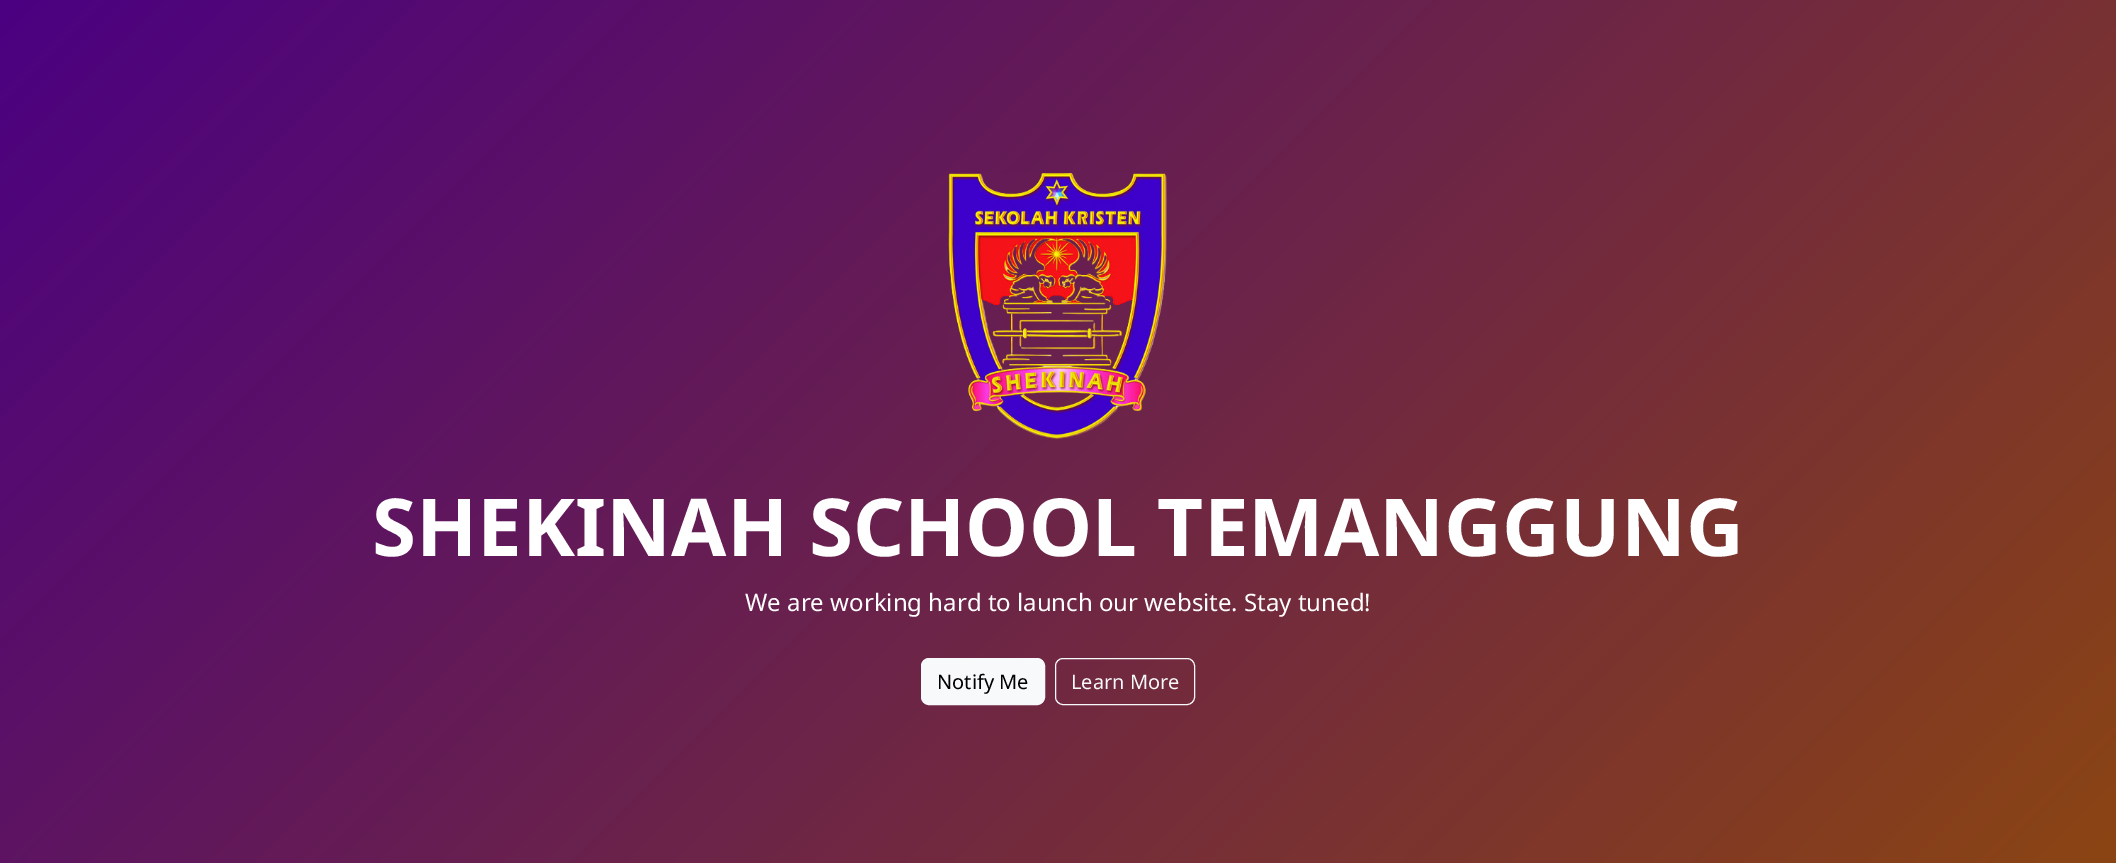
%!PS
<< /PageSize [2116 863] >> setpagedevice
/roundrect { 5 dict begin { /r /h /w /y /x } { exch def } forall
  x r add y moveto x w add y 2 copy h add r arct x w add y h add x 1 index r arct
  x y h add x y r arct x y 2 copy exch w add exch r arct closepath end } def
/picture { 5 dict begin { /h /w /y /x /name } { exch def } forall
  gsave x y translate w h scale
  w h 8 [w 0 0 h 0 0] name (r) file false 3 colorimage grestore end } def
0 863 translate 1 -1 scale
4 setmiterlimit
1 setgray
0 0 2116 863 rectfill
gsave newpath 0 0 moveto 2116 0 lineto 2116 863 lineto 0 863 lineto closepath clip newpath
<< /ShadingType 2 /ColorSpace /DeviceRGB /Coords [313 -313 1803 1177] /Extend [true true] /Function << /FunctionType 2 /Domain [0 1] /C0 [0.294 0 0.51] /C1 [0.545 0.271 0.075] /N 1 >> >> shfill grestore
(img1.rgb) 948 173 219 267 picture
/NotoSans-Bold [80 0 0 -80 0 0] selectfont
372 556 moveto (SHEKINAH SCHOOL TEMANGGUNG) show
/NotoSans-Regular [24 0 0 -24 0 0] selectfont
745 611 moveto (We are working hard to launch our website. Stay tuned!) show
0.973 0.976 0.98 setrgbcolor
921.5 658.5 123 46 7.5 roundrect gsave fill grestore
stroke
/NotoSans-Regular [20 0 0 -20 0 0] selectfont
0 setgray
937 689 moveto (Notify Me) show
0.973 0.976 0.98 setrgbcolor
1055.5 658.5 139 46 7.5 roundrect stroke
1071 689 moveto (Learn More) show
showpage
